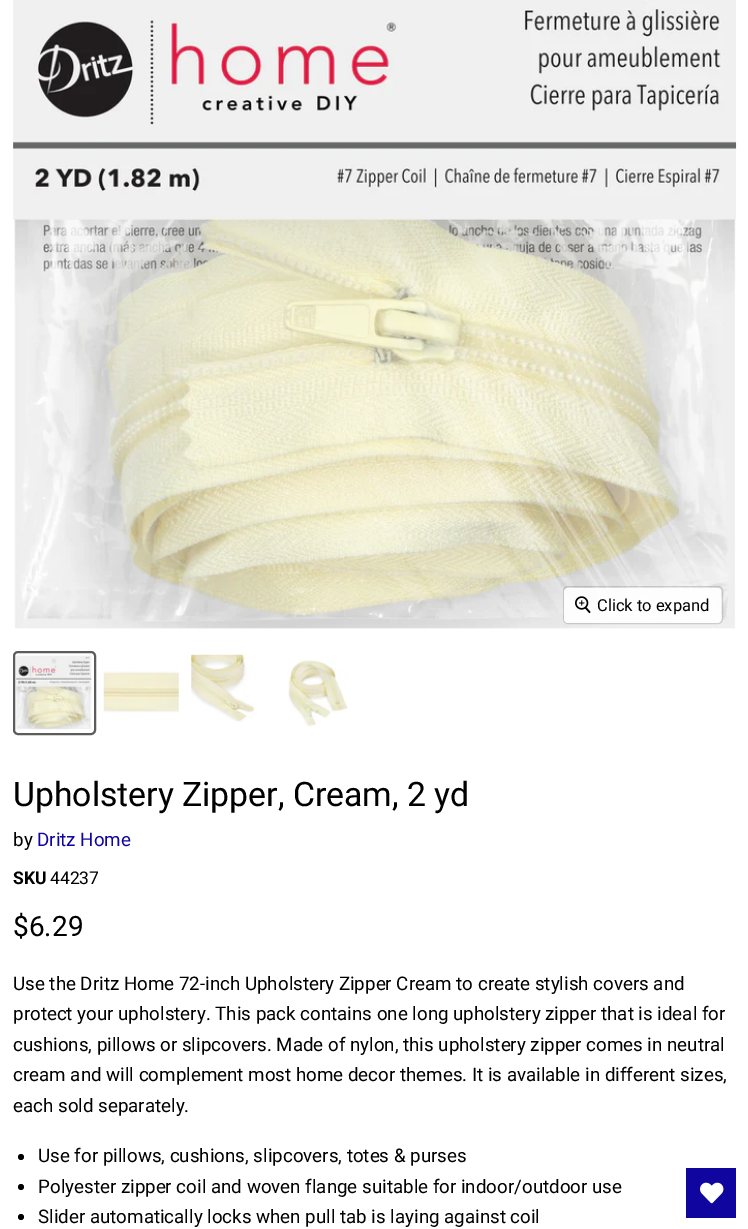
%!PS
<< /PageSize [748 1229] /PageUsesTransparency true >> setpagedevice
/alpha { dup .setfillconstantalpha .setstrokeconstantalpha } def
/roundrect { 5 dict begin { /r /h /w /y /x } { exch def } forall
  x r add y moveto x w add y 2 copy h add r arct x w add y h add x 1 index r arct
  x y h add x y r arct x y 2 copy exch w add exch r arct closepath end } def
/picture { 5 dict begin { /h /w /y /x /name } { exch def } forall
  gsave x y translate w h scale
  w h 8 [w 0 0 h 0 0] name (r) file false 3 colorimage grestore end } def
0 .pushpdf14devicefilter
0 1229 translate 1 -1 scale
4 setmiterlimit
1 setgray
0 0 748 1229 rectfill
(img1.rgb) 13 0 724 629 picture
0.15 alpha
0 setgray
563.5 586.5 159 37 4.5 roundrect stroke
0.9 alpha
1 setgray
564 588 157 35 4 roundrect fill
1 alpha
(img2.rgb) 575 596 16 18 picture
/Roboto-Regular [16.5 0 0 -16.5 0 0] selectfont
0 setgray
597 611 moveto (Click to expand) show
0.361 setgray
2 setlinewidth
14 652 81 82 4 roundrect stroke
(img3.rgb) 16 655 76 75 picture
(img4.rgb) 103 671 76 42 picture
(img5.rgb) 191 654 64 68 picture
(img6.rgb) 288 659 60 68 picture
/Roboto-Regular [33.75 0 0 -33.75 0 0] selectfont
0 setgray
13 806 moveto (Upholstery Zipper, Cream, 2 yd) show
/Roboto-Regular [18.75 0 0 -18.75 0 0] selectfont
13 846 moveto (by) show
0.063 0.024 0.624 setrgbcolor
37 846 moveto (Dritz Home) show
/Roboto-Bold [17.5 0 0 -17.5 0 0] selectfont
0 setgray
13 884 moveto (SKU) show
/Roboto-Regular [17.5 0 0 -17.5 0 0] selectfont
50 884 moveto (44237) show
/Roboto-Regular [28 0 0 -28 0 0] selectfont
13 936 moveto ($6.29) show
/Roboto-Regular [18.75 0 0 -18.75 0 0] selectfont
13 990 moveto (Use the Dritz Home 72-inch Upholstery Zipper Cream to create stylish covers and) show
13 1020 moveto (protect your upholstery. This pack contains one long upholstery zipper that is ideal for) show
13 1051 moveto (cushions, pillows or slipcovers. Made of nylon, this upholstery zipper comes in neutral) show
13 1081 moveto (cream and will complement most home decor themes. It is available in different sizes,) show
13 1112 moveto (each sold separately.) show
newpath 21 1157 3 0 360 arc closepath fill
38 1162 moveto (Use for pillows, cushions, slipcovers, totes & purses) show
newpath 21 1187 3 0 360 arc closepath fill
38 1193 moveto (Polyester zipper coil and woven flange suitable for indoor/outdoor use) show
newpath 21 1217 3 0 360 arc closepath fill
38 1223 moveto (Slider automatically locks when pull tab is laying against coil) show
0.063 0.024 0.624 setrgbcolor
686 1168 50 50 rectfill
(img7.rgb) 700 1182 24 22 picture
.poppdf14devicefilter showpage
